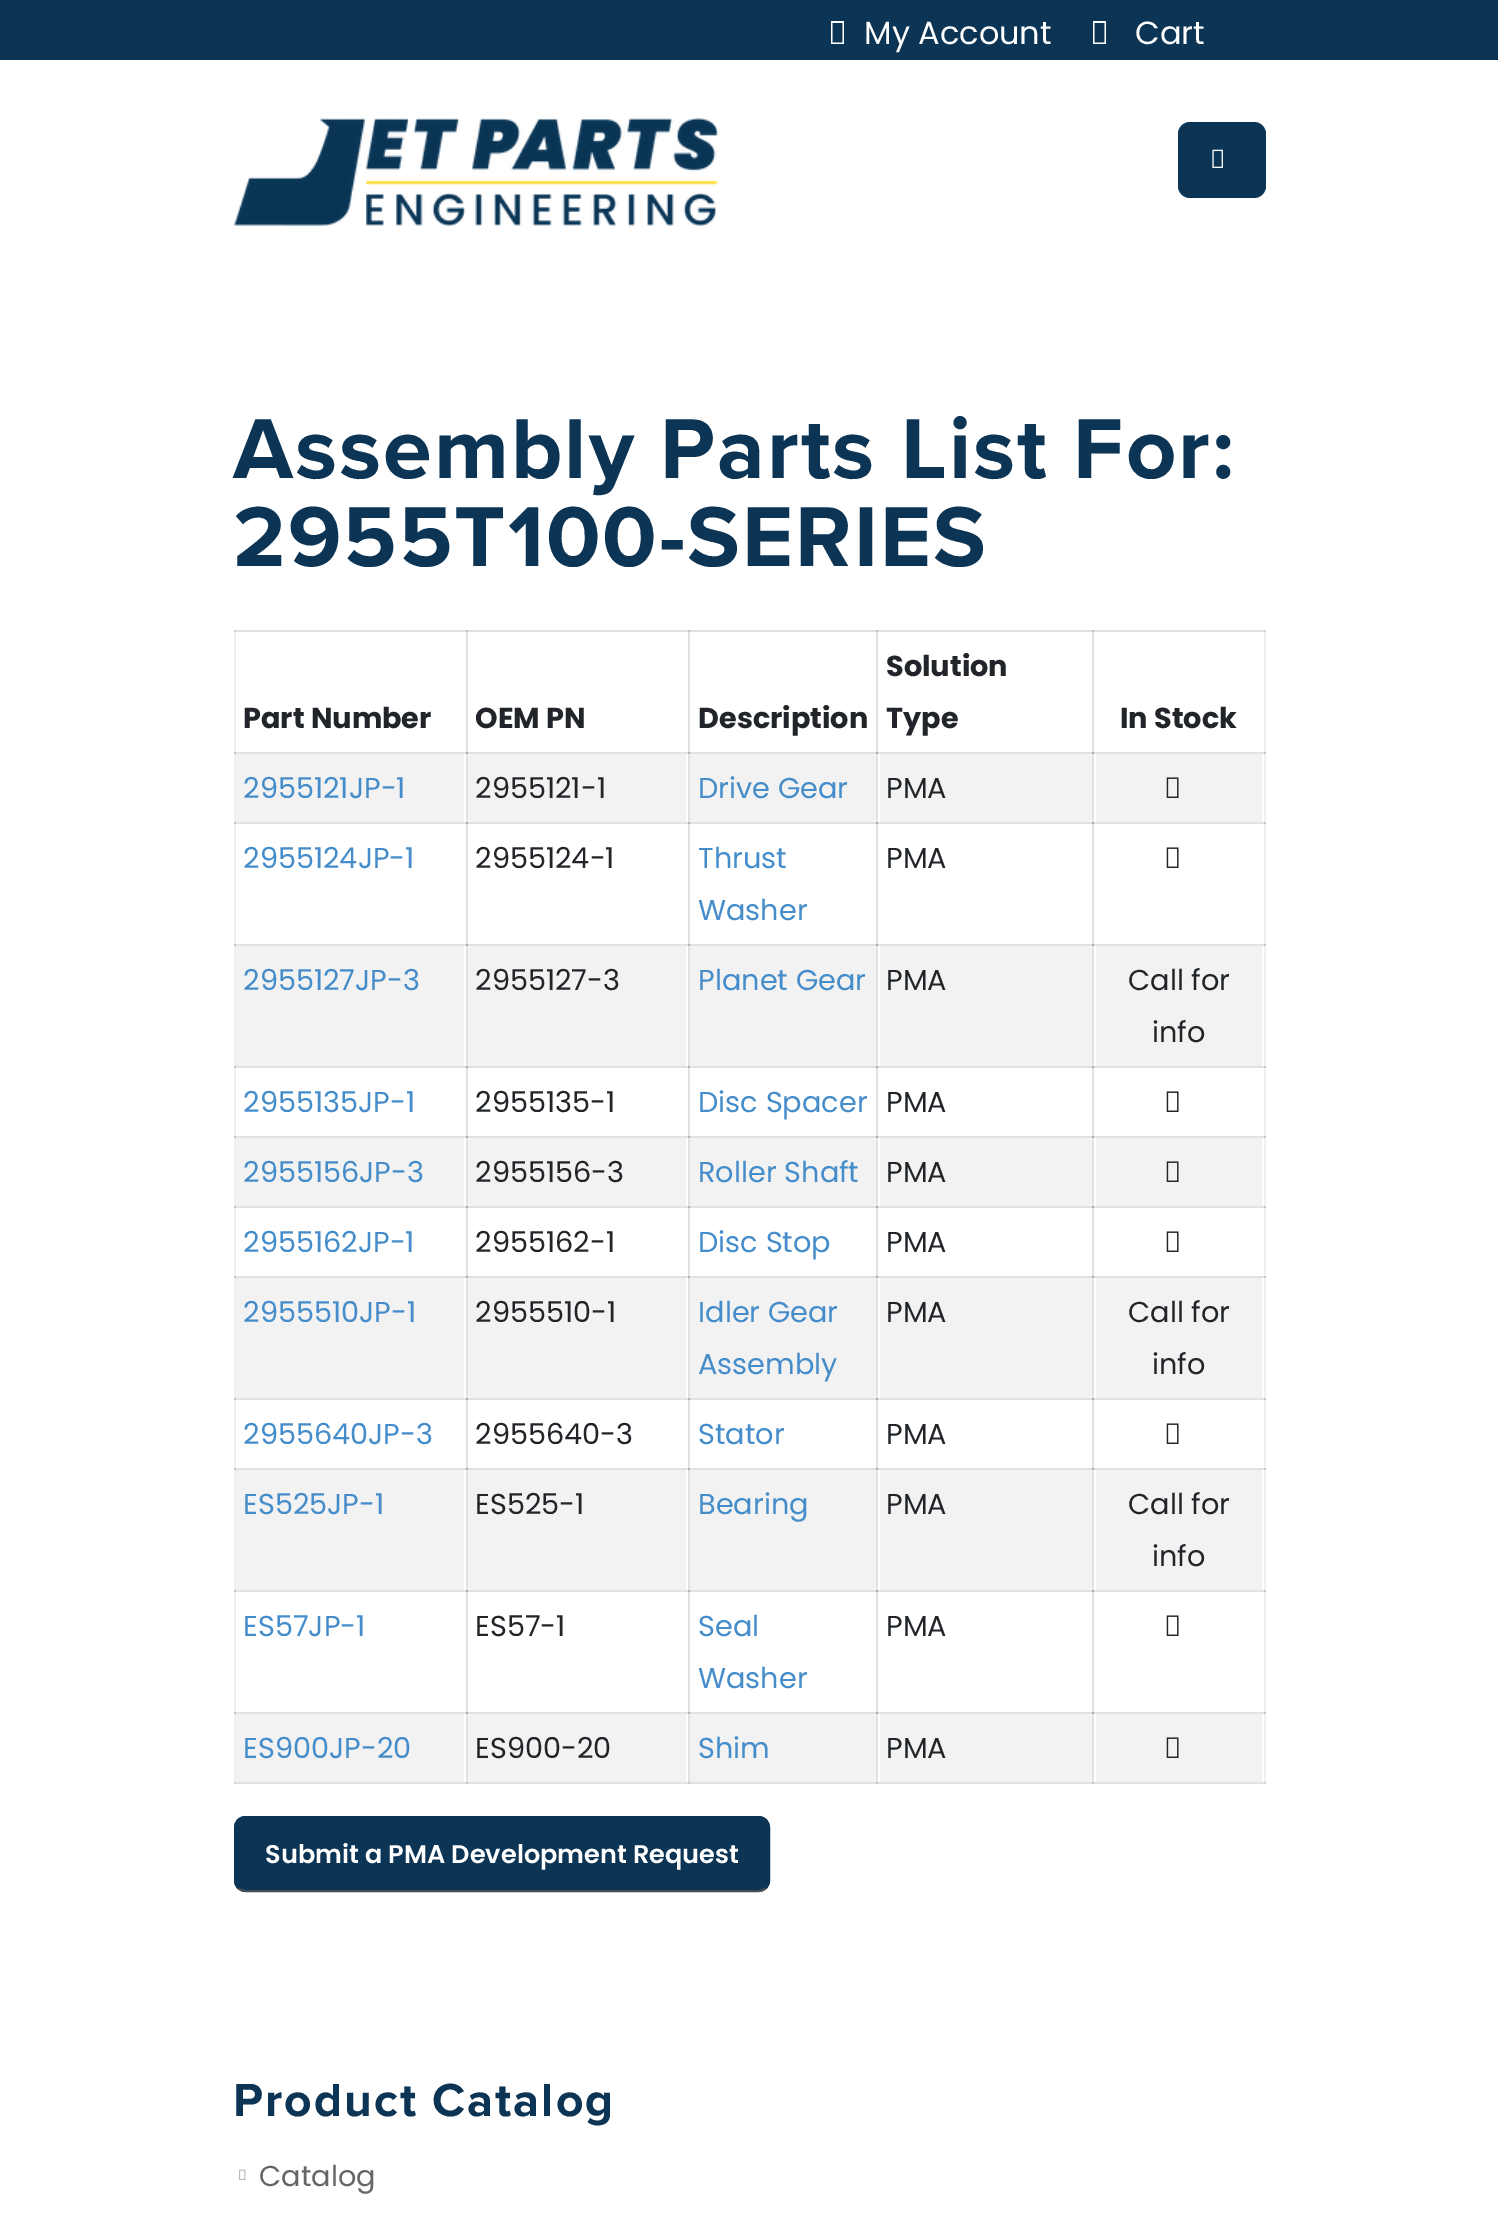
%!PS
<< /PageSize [1498 2227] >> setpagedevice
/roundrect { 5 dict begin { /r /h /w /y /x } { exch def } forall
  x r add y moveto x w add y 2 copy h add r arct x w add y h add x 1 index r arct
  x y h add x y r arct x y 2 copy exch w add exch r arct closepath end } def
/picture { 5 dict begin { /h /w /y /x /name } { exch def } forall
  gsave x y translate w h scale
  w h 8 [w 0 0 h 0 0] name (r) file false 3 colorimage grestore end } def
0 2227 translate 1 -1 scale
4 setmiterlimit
1 setgray
0 0 1498 2227 rectfill
0.941 setgray
234 630 2 1154 rectfill
0.886 setgray
466 630 2 1154 rectfill
688 630 2 1154 rectfill
876 630 2 1154 rectfill
1092 630 2 1154 rectfill
0.941 setgray
1264 630 2 1154 rectfill
0.047 0.204 0.329 setrgbcolor
0 0 1498 60 rectfill
1 setgray
newpath 831 44 moveto 831 21 lineto 844 21 lineto 844 44 lineto closepath 832.5 42.5 moveto 842.5 42.5 lineto 842.5 23 lineto 832.5 23 lineto closepath fill
/Poppins-Regular [32 0 0 -32 0 0] selectfont
864 44 moveto (My Account) show
newpath 1093 44 moveto 1093 21 lineto 1106 21 lineto 1106 44 lineto closepath 1094.5 42.5 moveto 1104.5 42.5 lineto 1104.5 23 lineto 1094.5 23 lineto closepath fill
1135 44 moveto (Cart) show
(img1.rgb) 234 118 484 108 picture
0.047 0.204 0.329 setrgbcolor
1178 122 88 76 12 roundrect fill
(img2.rgb) 1212 149 11 19 picture
/ProximaNova-Bold [88 0 0 -88 0 0] selectfont
233 478 moveto 2 0 (Assembly Parts List For:) ashow
233 566 moveto 2 0 (2955T100-SERIES) ashow
0.871 0.886 0.902 setrgbcolor
234 630 1032 2 rectfill
0.82 0.831 0.847 setrgbcolor
234 630 2 2 rectfill
0.769 0.78 0.796 setrgbcolor
466 630 2 2 rectfill
688 630 2 2 rectfill
876 630 2 2 rectfill
1092 630 2 2 rectfill
0.82 0.831 0.847 setrgbcolor
1264 630 2 2 rectfill
0.871 0.886 0.902 setrgbcolor
234 752 1032 2 rectfill
0.769 0.78 0.796 setrgbcolor
234 752 2 2 rectfill
0.678 0.69 0.706 setrgbcolor
466 752 2 2 rectfill
688 752 2 2 rectfill
876 752 2 2 rectfill
1092 752 2 2 rectfill
0.769 0.78 0.796 setrgbcolor
1264 752 2 2 rectfill
/Poppins-Bold [28.75 0 0 -28.75 0 0] selectfont
0.129 0.145 0.161 setrgbcolor
243 728 moveto (Part Number) show
475 728 moveto (OEM PN) show
698 728 moveto (Description) show
886 676 moveto (Solution) show
886 728 moveto (Type) show
1120 728 moveto (In Stock) show
0.871 0.886 0.902 setrgbcolor
234 822 1032 2 rectfill
0.769 0.78 0.796 setrgbcolor
234 822 2 2 rectfill
0.678 0.69 0.706 setrgbcolor
466 822 2 2 rectfill
688 822 2 2 rectfill
876 822 2 2 rectfill
1092 822 2 2 rectfill
0.769 0.78 0.796 setrgbcolor
1264 822 2 2 rectfill
0.949 setgray
236 754 228 68 rectfill
/Poppins-Regular [28.75 0 0 -28.75 0 0] selectfont
0.267 0.549 0.792 setrgbcolor
243 798 moveto (2955121JP-1) show
0.949 setgray
468 754 218 68 rectfill
0.129 0.145 0.161 setrgbcolor
475 798 moveto (2955121-1) show
0.949 setgray
690 754 186 68 rectfill
0.267 0.549 0.792 setrgbcolor
698 798 moveto (Drive Gear) show
0.949 setgray
880 754 212 68 rectfill
0.129 0.145 0.161 setrgbcolor
886 798 moveto (PMA) show
0.949 setgray
1096 754 166 68 rectfill
(img3.rgb) 1166 777 13 21 picture
0.871 0.886 0.902 setrgbcolor
234 944 1032 2 rectfill
0.769 0.78 0.796 setrgbcolor
234 944 2 2 rectfill
0.678 0.69 0.706 setrgbcolor
466 944 2 2 rectfill
688 944 2 2 rectfill
876 944 2 2 rectfill
1092 944 2 2 rectfill
0.769 0.78 0.796 setrgbcolor
1264 944 2 2 rectfill
0.267 0.549 0.792 setrgbcolor
243 868 moveto (2955124JP-1) show
0.129 0.145 0.161 setrgbcolor
475 868 moveto (2955124-1) show
0.267 0.549 0.792 setrgbcolor
698 868 moveto (Thrust) show
698 920 moveto (Washer) show
0.129 0.145 0.161 setrgbcolor
886 868 moveto (PMA) show
(img4.rgb) 1166 847 13 21 picture
0.871 0.886 0.902 setrgbcolor
234 1066 1032 2 rectfill
0.769 0.78 0.796 setrgbcolor
234 1066 2 2 rectfill
0.678 0.69 0.706 setrgbcolor
466 1066 2 2 rectfill
688 1066 2 2 rectfill
876 1066 2 2 rectfill
1092 1066 2 2 rectfill
0.769 0.78 0.796 setrgbcolor
1264 1066 2 2 rectfill
0.949 setgray
236 946 228 120 rectfill
0.267 0.549 0.792 setrgbcolor
243 990 moveto (2955127JP-3) show
0.949 setgray
468 946 218 120 rectfill
0.129 0.145 0.161 setrgbcolor
475 990 moveto (2955127-3) show
0.949 setgray
690 946 186 120 rectfill
0.267 0.549 0.792 setrgbcolor
698 990 moveto (Planet Gear) show
0.949 setgray
880 946 212 120 rectfill
0.129 0.145 0.161 setrgbcolor
886 990 moveto (PMA) show
0.949 setgray
1096 946 166 120 rectfill
0.129 0.145 0.161 setrgbcolor
1128 990 moveto (Call for) show
1152 1042 moveto (info) show
0.871 0.886 0.902 setrgbcolor
234 1136 1032 2 rectfill
0.769 0.78 0.796 setrgbcolor
234 1136 2 2 rectfill
0.678 0.69 0.706 setrgbcolor
466 1136 2 2 rectfill
688 1136 2 2 rectfill
876 1136 2 2 rectfill
1092 1136 2 2 rectfill
0.769 0.78 0.796 setrgbcolor
1264 1136 2 2 rectfill
0.267 0.549 0.792 setrgbcolor
243 1112 moveto (2955135JP-1) show
0.129 0.145 0.161 setrgbcolor
475 1112 moveto (2955135-1) show
0.267 0.549 0.792 setrgbcolor
698 1112 moveto (Disc Spacer) show
0.129 0.145 0.161 setrgbcolor
886 1112 moveto (PMA) show
(img4.rgb) 1166 1091 13 21 picture
0.871 0.886 0.902 setrgbcolor
234 1206 1032 2 rectfill
0.769 0.78 0.796 setrgbcolor
234 1206 2 2 rectfill
0.678 0.69 0.706 setrgbcolor
466 1206 2 2 rectfill
688 1206 2 2 rectfill
876 1206 2 2 rectfill
1092 1206 2 2 rectfill
0.769 0.78 0.796 setrgbcolor
1264 1206 2 2 rectfill
0.949 setgray
236 1138 228 68 rectfill
0.267 0.549 0.792 setrgbcolor
243 1182 moveto (2955156JP-3) show
0.949 setgray
468 1138 218 68 rectfill
0.129 0.145 0.161 setrgbcolor
475 1182 moveto (2955156-3) show
0.949 setgray
690 1138 186 68 rectfill
0.267 0.549 0.792 setrgbcolor
698 1182 moveto (Roller Shaft) show
0.949 setgray
880 1138 212 68 rectfill
0.129 0.145 0.161 setrgbcolor
886 1182 moveto (PMA) show
0.949 setgray
1096 1138 166 68 rectfill
(img3.rgb) 1166 1161 13 21 picture
0.871 0.886 0.902 setrgbcolor
234 1276 1032 2 rectfill
0.769 0.78 0.796 setrgbcolor
234 1276 2 2 rectfill
0.678 0.69 0.706 setrgbcolor
466 1276 2 2 rectfill
688 1276 2 2 rectfill
876 1276 2 2 rectfill
1092 1276 2 2 rectfill
0.769 0.78 0.796 setrgbcolor
1264 1276 2 2 rectfill
0.267 0.549 0.792 setrgbcolor
243 1252 moveto (2955162JP-1) show
0.129 0.145 0.161 setrgbcolor
475 1252 moveto (2955162-1) show
0.267 0.549 0.792 setrgbcolor
698 1252 moveto (Disc Stop) show
0.129 0.145 0.161 setrgbcolor
886 1252 moveto (PMA) show
(img4.rgb) 1166 1231 13 21 picture
0.871 0.886 0.902 setrgbcolor
234 1398 1032 2 rectfill
0.769 0.78 0.796 setrgbcolor
234 1398 2 2 rectfill
0.678 0.69 0.706 setrgbcolor
466 1398 2 2 rectfill
688 1398 2 2 rectfill
876 1398 2 2 rectfill
1092 1398 2 2 rectfill
0.769 0.78 0.796 setrgbcolor
1264 1398 2 2 rectfill
0.949 setgray
236 1278 228 120 rectfill
0.267 0.549 0.792 setrgbcolor
243 1322 moveto (2955510JP-1) show
0.949 setgray
468 1278 218 120 rectfill
0.129 0.145 0.161 setrgbcolor
475 1322 moveto (2955510-1) show
0.949 setgray
690 1278 186 120 rectfill
0.267 0.549 0.792 setrgbcolor
698 1322 moveto (Idler Gear) show
698 1374 moveto (Assembly) show
0.949 setgray
880 1278 212 120 rectfill
0.129 0.145 0.161 setrgbcolor
886 1322 moveto (PMA) show
0.949 setgray
1096 1278 166 120 rectfill
0.129 0.145 0.161 setrgbcolor
1128 1322 moveto (Call for) show
1152 1374 moveto (info) show
0.871 0.886 0.902 setrgbcolor
234 1468 1032 2 rectfill
0.769 0.78 0.796 setrgbcolor
234 1468 2 2 rectfill
0.678 0.69 0.706 setrgbcolor
466 1468 2 2 rectfill
688 1468 2 2 rectfill
876 1468 2 2 rectfill
1092 1468 2 2 rectfill
0.769 0.78 0.796 setrgbcolor
1264 1468 2 2 rectfill
0.267 0.549 0.792 setrgbcolor
243 1444 moveto (2955640JP-3) show
0.129 0.145 0.161 setrgbcolor
475 1444 moveto (2955640-3) show
0.267 0.549 0.792 setrgbcolor
698 1444 moveto (Stator) show
0.129 0.145 0.161 setrgbcolor
886 1444 moveto (PMA) show
(img4.rgb) 1166 1423 13 21 picture
0.871 0.886 0.902 setrgbcolor
234 1590 1032 2 rectfill
0.769 0.78 0.796 setrgbcolor
234 1590 2 2 rectfill
0.678 0.69 0.706 setrgbcolor
466 1590 2 2 rectfill
688 1590 2 2 rectfill
876 1590 2 2 rectfill
1092 1590 2 2 rectfill
0.769 0.78 0.796 setrgbcolor
1264 1590 2 2 rectfill
0.949 setgray
236 1470 228 120 rectfill
0.267 0.549 0.792 setrgbcolor
243 1514 moveto (ES525JP-1) show
0.949 setgray
468 1470 218 120 rectfill
0.129 0.145 0.161 setrgbcolor
475 1514 moveto (ES525-1) show
0.949 setgray
690 1470 186 120 rectfill
0.267 0.549 0.792 setrgbcolor
698 1514 moveto (Bearing) show
0.949 setgray
880 1470 212 120 rectfill
0.129 0.145 0.161 setrgbcolor
886 1514 moveto (PMA) show
0.949 setgray
1096 1470 166 120 rectfill
0.129 0.145 0.161 setrgbcolor
1128 1514 moveto (Call for) show
1152 1566 moveto (info) show
0.871 0.886 0.902 setrgbcolor
234 1712 1032 2 rectfill
0.769 0.78 0.796 setrgbcolor
234 1712 2 2 rectfill
0.678 0.69 0.706 setrgbcolor
466 1712 2 2 rectfill
688 1712 2 2 rectfill
876 1712 2 2 rectfill
1092 1712 2 2 rectfill
0.769 0.78 0.796 setrgbcolor
1264 1712 2 2 rectfill
0.267 0.549 0.792 setrgbcolor
243 1636 moveto (ES57JP-1) show
0.129 0.145 0.161 setrgbcolor
475 1636 moveto (ES57-1) show
0.267 0.549 0.792 setrgbcolor
698 1636 moveto (Seal) show
698 1688 moveto (Washer) show
0.129 0.145 0.161 setrgbcolor
886 1636 moveto (PMA) show
(img4.rgb) 1166 1615 13 21 picture
0.871 0.886 0.902 setrgbcolor
234 1782 1032 2 rectfill
0.82 0.831 0.847 setrgbcolor
234 1782 2 2 rectfill
0.769 0.78 0.796 setrgbcolor
466 1782 2 2 rectfill
688 1782 2 2 rectfill
876 1782 2 2 rectfill
1092 1782 2 2 rectfill
0.82 0.831 0.847 setrgbcolor
1264 1782 2 2 rectfill
0.949 setgray
236 1714 228 68 rectfill
0.267 0.549 0.792 setrgbcolor
243 1758 moveto (ES900JP-20) show
0.949 setgray
468 1714 218 68 rectfill
0.129 0.145 0.161 setrgbcolor
475 1758 moveto (ES900-20) show
0.949 setgray
690 1714 186 68 rectfill
0.267 0.549 0.792 setrgbcolor
698 1758 moveto (Shim) show
0.949 setgray
880 1714 212 68 rectfill
0.129 0.145 0.161 setrgbcolor
886 1758 moveto (PMA) show
0.949 setgray
1096 1714 166 68 rectfill
(img3.rgb) 1166 1737 13 21 picture
0.047 0.204 0.329 setrgbcolor
234 1816 536 76 12 roundrect fill
0.267 0.302 0.329 setrgbcolor
2 setlinewidth
newpath 766 1888 moveto 763.5 1890 761 1891 758 1891 curveto 246 1891 lineto 243 1891 240.5 1890 238 1888 curveto stroke
0.047 0.204 0.329 setrgbcolor
newpath 238 1888 moveto 236 1885.5 235 1883 235 1880 curveto 235 1828 lineto 235 1825 236 1822.5 238 1820 curveto 240.5 1818 243 1817 246 1817 curveto 758 1817 lineto 761 1817 763.5 1818 766 1820 curveto 768 1822.5 769 1825 769 1828 curveto 769 1880 lineto 769 1883 768 1885.5 766 1888 curveto stroke
/Poppins-SemiBold [25.6 0 0 -25.6 0 0] selectfont
1 setgray
265 1863 moveto (Submit a PMA Development Request) show
/ProximaNova-Bold [48 0 0 -48 0 0] selectfont
0.047 0.204 0.329 setrgbcolor
233 2116 moveto 2 0 (Product Catalog) ashow
(img5.rgb) 239 2169 7 11 picture
/Poppins-Regular [28.75 0 0 -28.75 0 0] selectfont
0.4 setgray
259 2186 moveto (Catalog) show
showpage
